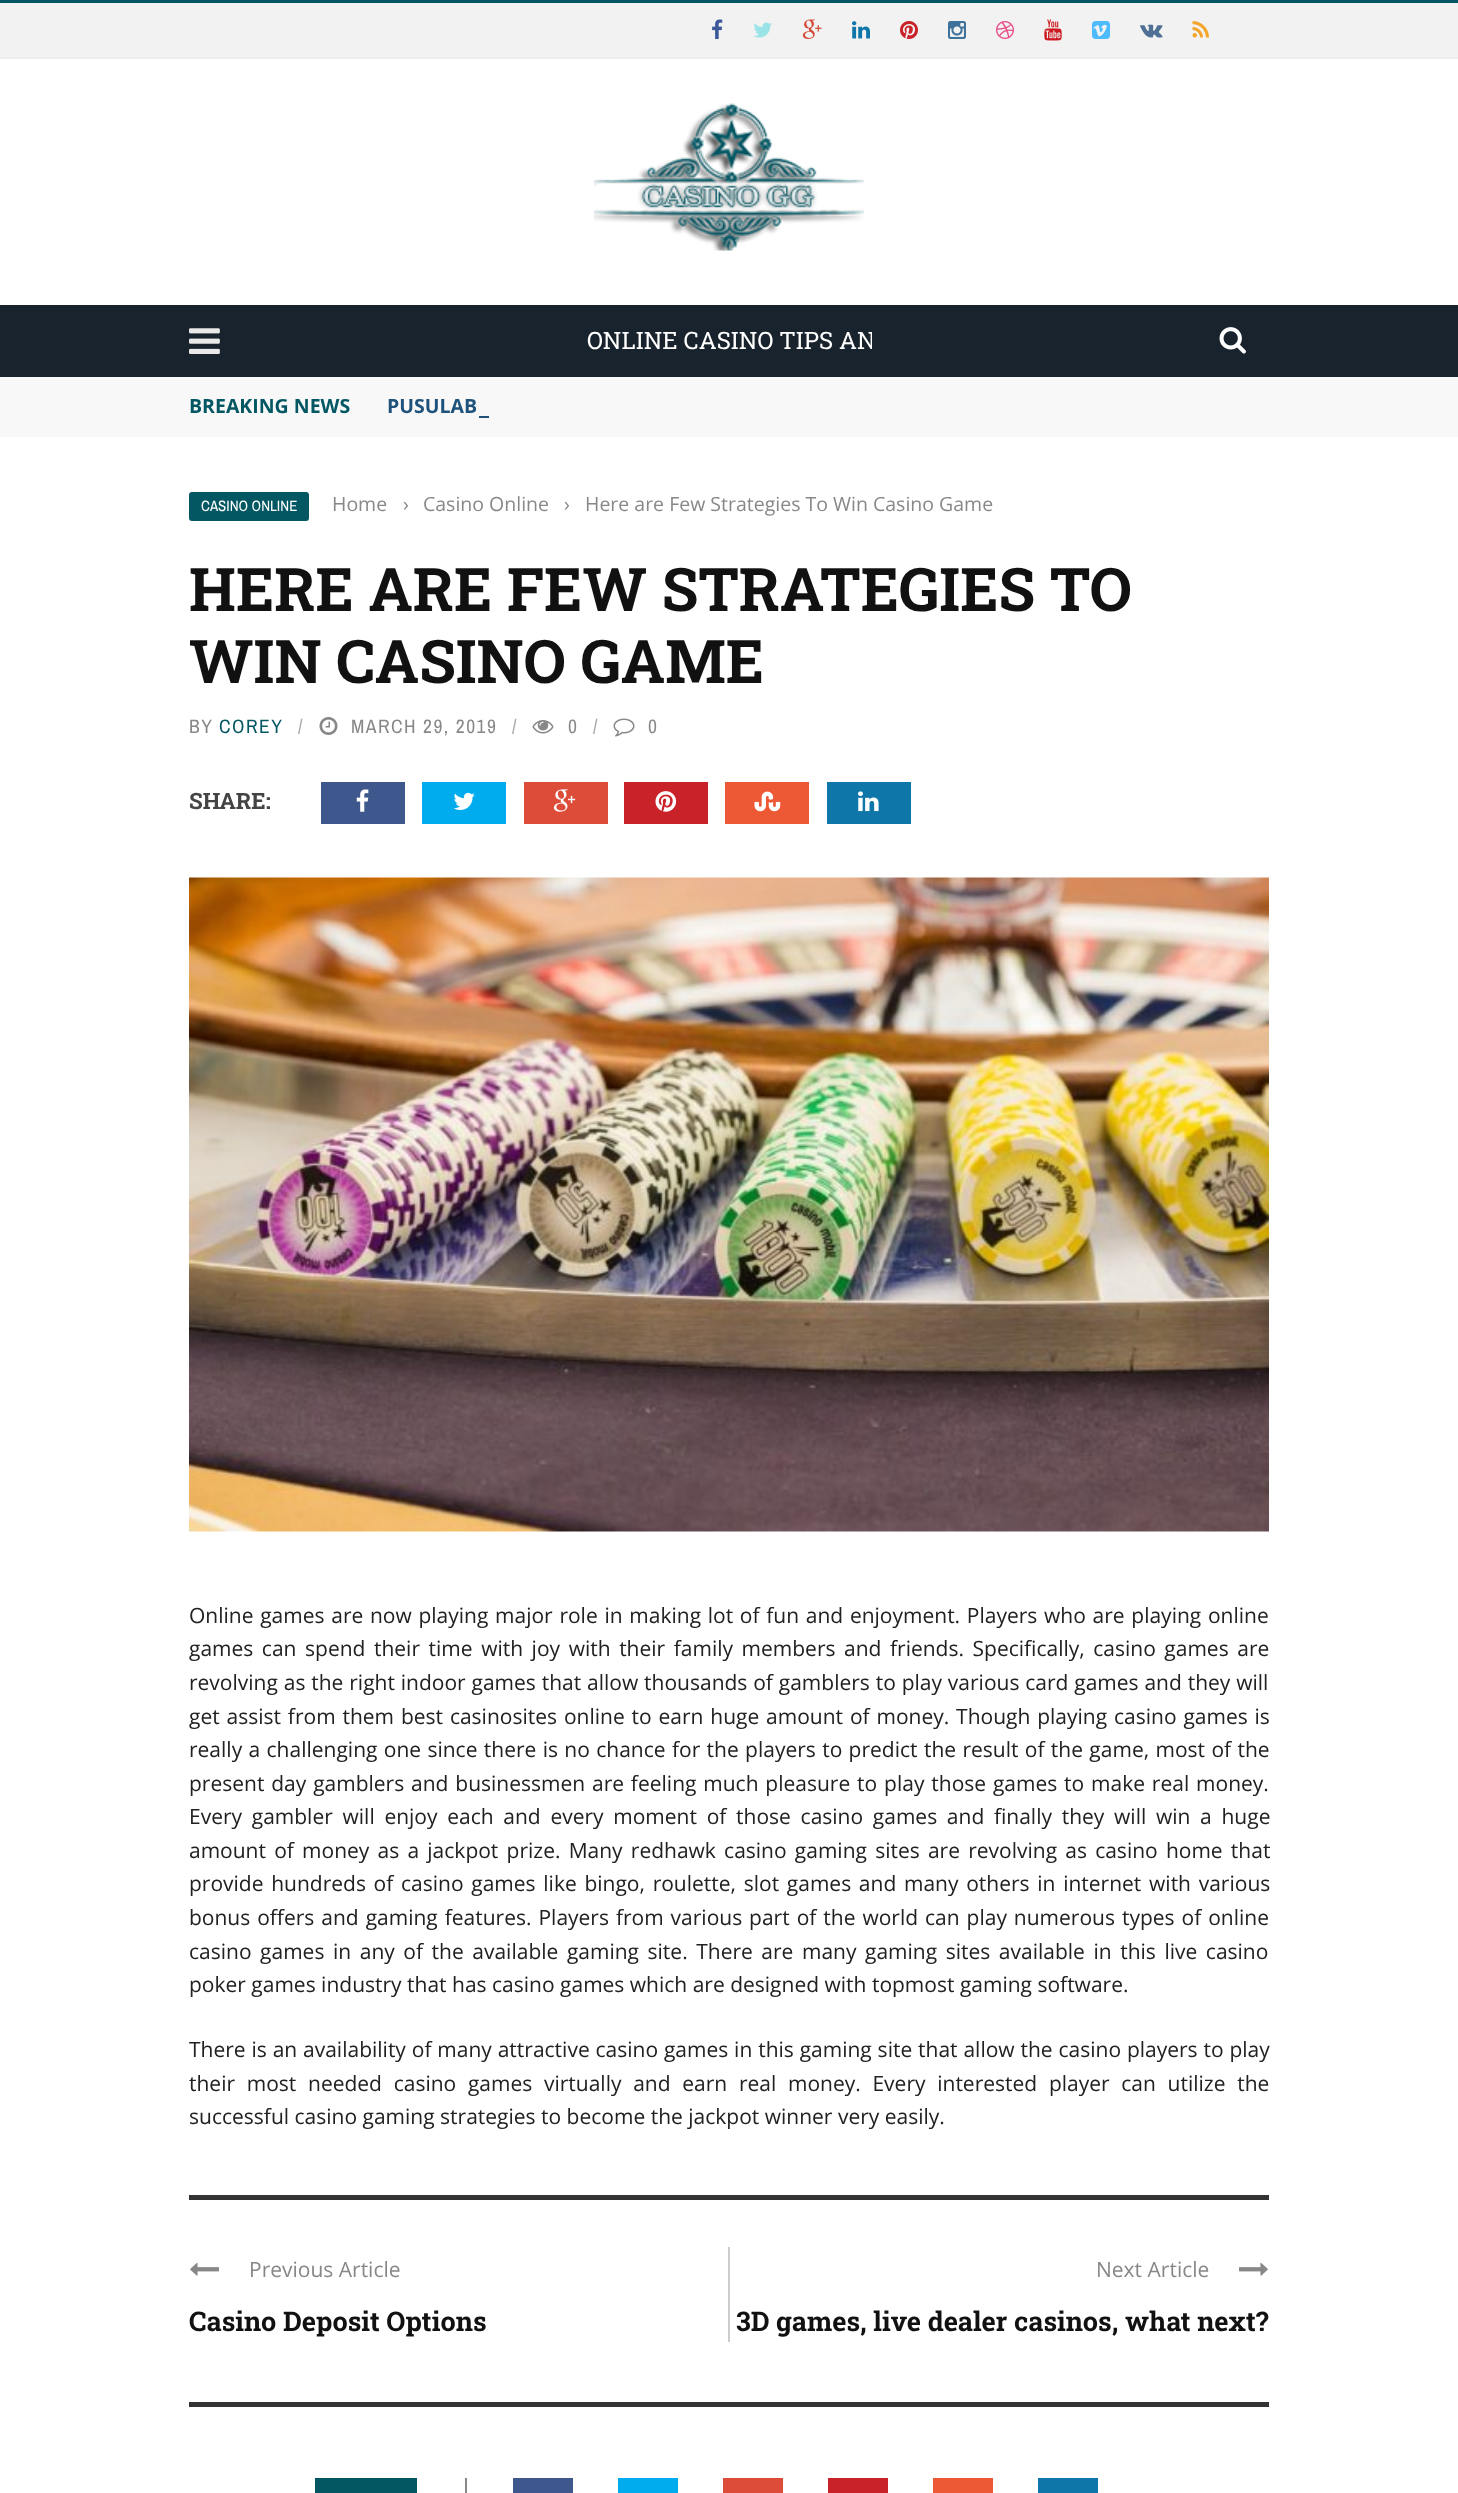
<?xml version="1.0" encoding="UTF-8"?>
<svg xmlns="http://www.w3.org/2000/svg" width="1458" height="2493">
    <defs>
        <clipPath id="clip1"><rect x="587" y="305" width="285" height="72"/></clipPath>
    </defs>
    <rect width="100%" height="100%" fill="#FFFFFF"/>
    <rect x="0" y="3" width="1458" height="54" fill="#F2F2F2"/>
    <rect x="0" y="0" width="1458" height="3" fill="#035763"/>
    <rect x="0" y="57" width="1458" height="2" fill="#EEEEEE"/>
    <image x="712" y="19" width="11" height="20" href="img_01.png"/>
    <image x="753" y="22" width="19" height="16" href="img_02.png"/>
    <image x="802" y="19" width="20" height="20" href="img_03.png"/>
    <image x="852" y="21" width="18" height="18" href="img_04.png"/>
    <image x="900" y="21" width="18" height="18" href="img_05.png"/>
    <image x="948" y="21" width="18" height="18" href="img_06.png"/>
    <image x="996" y="21" width="18" height="18" href="img_07.png"/>
    <image x="1044" y="19" width="18" height="22" href="img_08.png"/>
    <image x="1092" y="21" width="18" height="18" href="img_09.png"/>
    <image x="1140" y="24" width="23" height="14" href="img_10.png"/>
    <image x="1192" y="21" width="17" height="17" href="img_11.png"/>
    <image x="594" y="103" width="270" height="148" href="img_12.png"/>
    <rect x="0" y="305" width="1458" height="72" fill="#19232D"/>
    <image x="189" y="328" width="31" height="26" href="img_13.png"/>
    <g clip-path="url(#clip1)">
        <text x="587" y="349" font-family="Roboto Slab" font-size="24" fill="#FFFFFF">ONLINE CASINO TIPS AN</text>
    </g>
    <image x="1219" y="327" width="27" height="27" href="img_14.png"/>
    <rect x="0" y="377" width="1458" height="60" fill="#F8F8F8"/>
    <text x="189" y="413" font-family="Open Sans" font-size="19.5" font-weight="700" fill="#035763">BREAKING NEWS</text>
    <text x="387" y="413" font-family="Open Sans" font-size="19.5" font-weight="700" fill="#1F527B">PUSULAB</text>
    <rect x="479" y="416" width="10" height="2" fill="#1F527B"/>
    <rect x="189" y="492" width="120" height="29" rx="3" fill="#035763"/>
    <text x="201" y="511" font-family="Archivo Narrow" font-size="15" fill="#FFFFFF">CASINO ONLINE</text>
    <text x="332" y="511" font-family="Open Sans" font-size="19.5" fill="#888888">Home</text>
    <text x="403" y="511" font-family="Open Sans" font-size="19.5" fill="#888888">›</text>
    <text x="423" y="511" font-family="Open Sans" font-size="19.5" fill="#888888">Casino Online</text>
    <text x="564" y="511" font-family="Open Sans" font-size="19.5" fill="#888888">›</text>
    <text x="585" y="511" font-family="Open Sans" font-size="19.5" fill="#888888">Here are Few Strategies To Win Casino Game</text>
    <text font-family="Roboto Slab" font-size="60" font-weight="700" fill="#111111">
        <tspan x="189" y="611">HERE ARE FEW STRATEGIES TO</tspan>
        <tspan x="189" y="683">WIN CASINO GAME</tspan>
    </text>
    <text x="189" y="733" font-family="Archivo Narrow" font-size="19.5" letter-spacing="1.5" fill="#888888">BY</text>
    <text x="219" y="733" font-family="Archivo Narrow" font-size="19.5" letter-spacing="1.5" fill="#035763">COREY</text>
    <text x="298" y="733" font-family="Archivo Narrow" font-size="19.5" letter-spacing="1.5" fill="#AAAAAA">/</text>
    <image x="319" y="717" width="19" height="18" href="img_15.png"/>
    <text x="351" y="733" font-family="Archivo Narrow" font-size="19.5" letter-spacing="1.5" fill="#888888">MARCH 29, 2019</text>
    <text x="512" y="733" font-family="Archivo Narrow" font-size="19.5" letter-spacing="1.5" fill="#AAAAAA">/</text>
    <image x="532" y="720" width="22" height="14" href="img_16.png"/>
    <text x="568" y="733" font-family="Archivo Narrow" font-size="19.5" letter-spacing="1.5" fill="#888888">0</text>
    <text x="593" y="733" font-family="Archivo Narrow" font-size="19.5" letter-spacing="1.5" fill="#AAAAAA">/</text>
    <image x="613" y="718" width="22" height="19" href="img_17.png"/>
    <text x="648" y="733" font-family="Archivo Narrow" font-size="19.5" letter-spacing="1.5" fill="#888888">0</text>
    <text x="189" y="809" font-family="Roboto Slab" font-size="22.5" font-weight="700" fill="#444444">SHARE:</text>
    <rect x="321" y="782" width="84" height="42" fill="#3E578C"/>
    <image x="356" y="789" width="13" height="23" href="img_18.png"/>
    <rect x="422" y="782" width="84" height="42" fill="#00ACEE"/>
    <image x="453" y="792" width="22" height="18" href="img_19.png"/>
    <rect x="524" y="782" width="84" height="42" fill="#DD4B39"/>
    <image x="553" y="789" width="23" height="23" href="img_20.png"/>
    <rect x="624" y="782" width="84" height="42" fill="#C92228"/>
    <image x="655" y="791" width="22" height="21" href="img_21.png"/>
    <rect x="725" y="782" width="84" height="42" fill="#ED5934"/>
    <image x="754" y="791" width="27" height="21" href="img_22.png"/>
    <rect x="827" y="782" width="84" height="42" fill="#0E76A8"/>
    <image x="858" y="791" width="21" height="21" href="img_23.png"/>
    <image x="189" y="877" width="1080" height="655" href="img_24.png"/>
    <text font-family="Open Sans" font-size="21" fill="#212121">
        <tspan x="189" y="1623" word-spacing="1.25">Online games are now playing major role in making lot of fun and enjoyment. Players who are playing online</tspan>
        <tspan x="189" y="1656" word-spacing="3.1">games can spend their time with joy with their family members and friends. Specifically, casino games are</tspan>
        <tspan x="189" y="1690" word-spacing="0.4">revolving as the right indoor games that allow thousands of gamblers to play various card games and they will</tspan>
        <tspan x="189" y="1724" word-spacing="1.4">get assist from them best casinosites online to earn huge amount of money. Though playing casino games is</tspan>
        <tspan x="189" y="1757" word-spacing="0.9">really a challenging one since there is no chance for the players to predict the result of the game, most of the</tspan>
        <tspan x="189" y="1791" word-spacing="1.4">present day gamblers and businessmen are feeling much pleasure to play those games to make real money.</tspan>
        <tspan x="189" y="1824" word-spacing="4.25">Every gambler will enjoy each and every moment of those casino games and finally they will win a huge</tspan>
        <tspan x="189" y="1858" word-spacing="2.75">amount of money as a jackpot prize. Many redhawk casino gaming sites are revolving as casino home that</tspan>
        <tspan x="189" y="1891" word-spacing="2.25">provide hundreds of casino games like bingo, roulette, slot games and many others in internet with various</tspan>
        <tspan x="189" y="1925" word-spacing="1.5">bonus offers and gaming features. Players from various part of the world can play numerous types of online</tspan>
        <tspan x="189" y="1959" word-spacing="3.1">casino games in any of the available gaming site. There are many gaming sites available in this live casino</tspan>
        <tspan x="189" y="1992">poker games industry that has casino games which are designed with topmost gaming software.</tspan>
    </text>
    <text font-family="Open Sans" font-size="21" fill="#212121">
        <tspan x="189" y="2057" word-spacing="0.4">There is an availability of many attractive casino games in this gaming site that allow the casino players to play</tspan>
        <tspan x="189" y="2091" word-spacing="6.25">their most needed casino games virtually and earn real money. Every interested player can utilize the</tspan>
        <tspan x="189" y="2124">successful casino gaming strategies to become the jackpot winner very easily.</tspan>
    </text>
    <rect x="189" y="2195" width="1080" height="5" fill="#333333"/>
    <rect x="728" y="2247" width="2" height="95" fill="#CCCCCC"/>
    <image x="190" y="2262" width="29" height="14" href="img_25.png"/>
    <text x="249" y="2277" font-family="Open Sans" font-size="21" fill="#888888">Previous Article</text>
    <text x="189" y="2331" font-family="Roboto Slab" font-size="27" font-weight="700" fill="#111111">Casino Deposit Options</text>
    <text x="1096" y="2277" font-family="Open Sans" font-size="21" fill="#888888">Next Article</text>
    <image x="1239" y="2262" width="29" height="14" href="img_26.png"/>
    <text x="736" y="2331" font-family="Roboto Slab" font-size="27" font-weight="700" fill="#111111">3D games, live dealer casinos, what next?</text>
    <rect x="189" y="2402" width="1080" height="5" fill="#333333"/>
    <rect x="465" y="2478" width="2" height="15" fill="#888888"/>
    <rect x="315" y="2478" width="102" height="15" fill="#035763"/>
    <rect x="513" y="2478" width="60" height="15" fill="#3E578C"/>
    <rect x="618" y="2478" width="60" height="15" fill="#00ACEE"/>
    <rect x="723" y="2478" width="60" height="15" fill="#DD4B39"/>
    <rect x="828" y="2478" width="60" height="15" fill="#C92228"/>
    <rect x="933" y="2478" width="60" height="15" fill="#ED5934"/>
    <rect x="1038" y="2478" width="60" height="15" fill="#0E76A8"/>
</svg>
